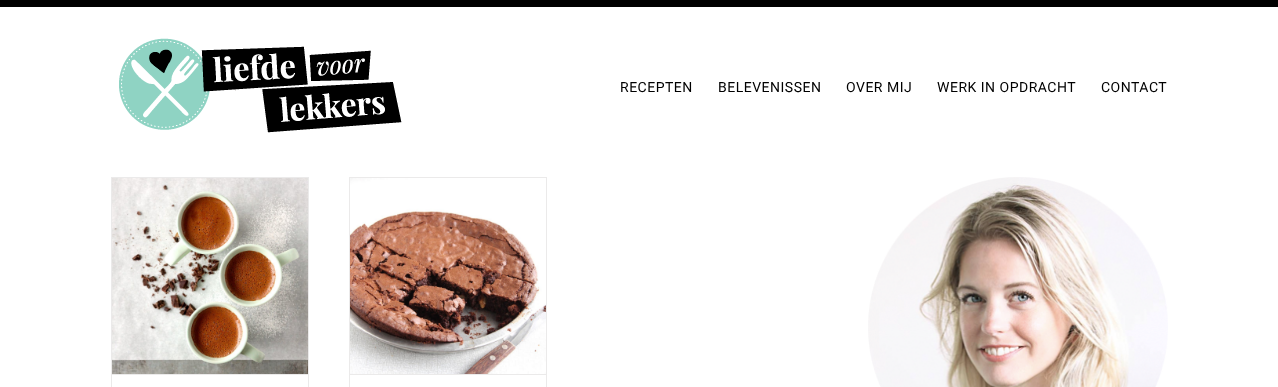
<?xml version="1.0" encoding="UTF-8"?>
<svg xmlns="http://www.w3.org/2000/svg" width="1278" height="387">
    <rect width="100%" height="100%" fill="#FFFFFF"/>
    <rect x="0" y="0" width="1278" height="7" fill="#000000"/>
    <image x="119" y="38" width="283" height="95" href="img_01.png"/>
    <text x="620" y="92" font-family="Roboto" font-size="14" letter-spacing="0.5" fill="#000000">RECEPTEN</text>
    <text x="718" y="92" font-family="Roboto" font-size="14" letter-spacing="0.5" fill="#000000">BELEVENISSEN</text>
    <text x="846" y="92" font-family="Roboto" font-size="14" letter-spacing="0.5" fill="#000000">OVER MIJ</text>
    <text x="937" y="92" font-family="Roboto" font-size="14" letter-spacing="0.5" fill="#000000">WERK IN OPDRACHT</text>
    <text x="1101" y="92" font-family="Roboto" font-size="14" letter-spacing="0.5" fill="#000000">CONTACT</text>
    <rect x="111" y="177" width="198" height="1" fill="#EBEAEA"/>
    <rect x="308" y="177" width="1" height="210" fill="#EBEAEA"/>
    <rect x="111" y="177" width="1" height="210" fill="#EBEAEA"/>
    <rect x="112" y="374" width="196" height="1" fill="#EBEAEA"/>
    <image x="112" y="178" width="196" height="196" href="img_02.png"/>
    <rect x="349" y="177" width="198" height="1" fill="#EBEAEA"/>
    <rect x="546" y="177" width="1" height="210" fill="#EBEAEA"/>
    <rect x="349" y="177" width="1" height="210" fill="#EBEAEA"/>
    <rect x="350" y="374" width="196" height="1" fill="#EBEAEA"/>
    <image x="350" y="178" width="196" height="196" href="img_03.png"/>
    <image x="868" y="177" width="300" height="210" href="img_04.png"/>
</svg>
